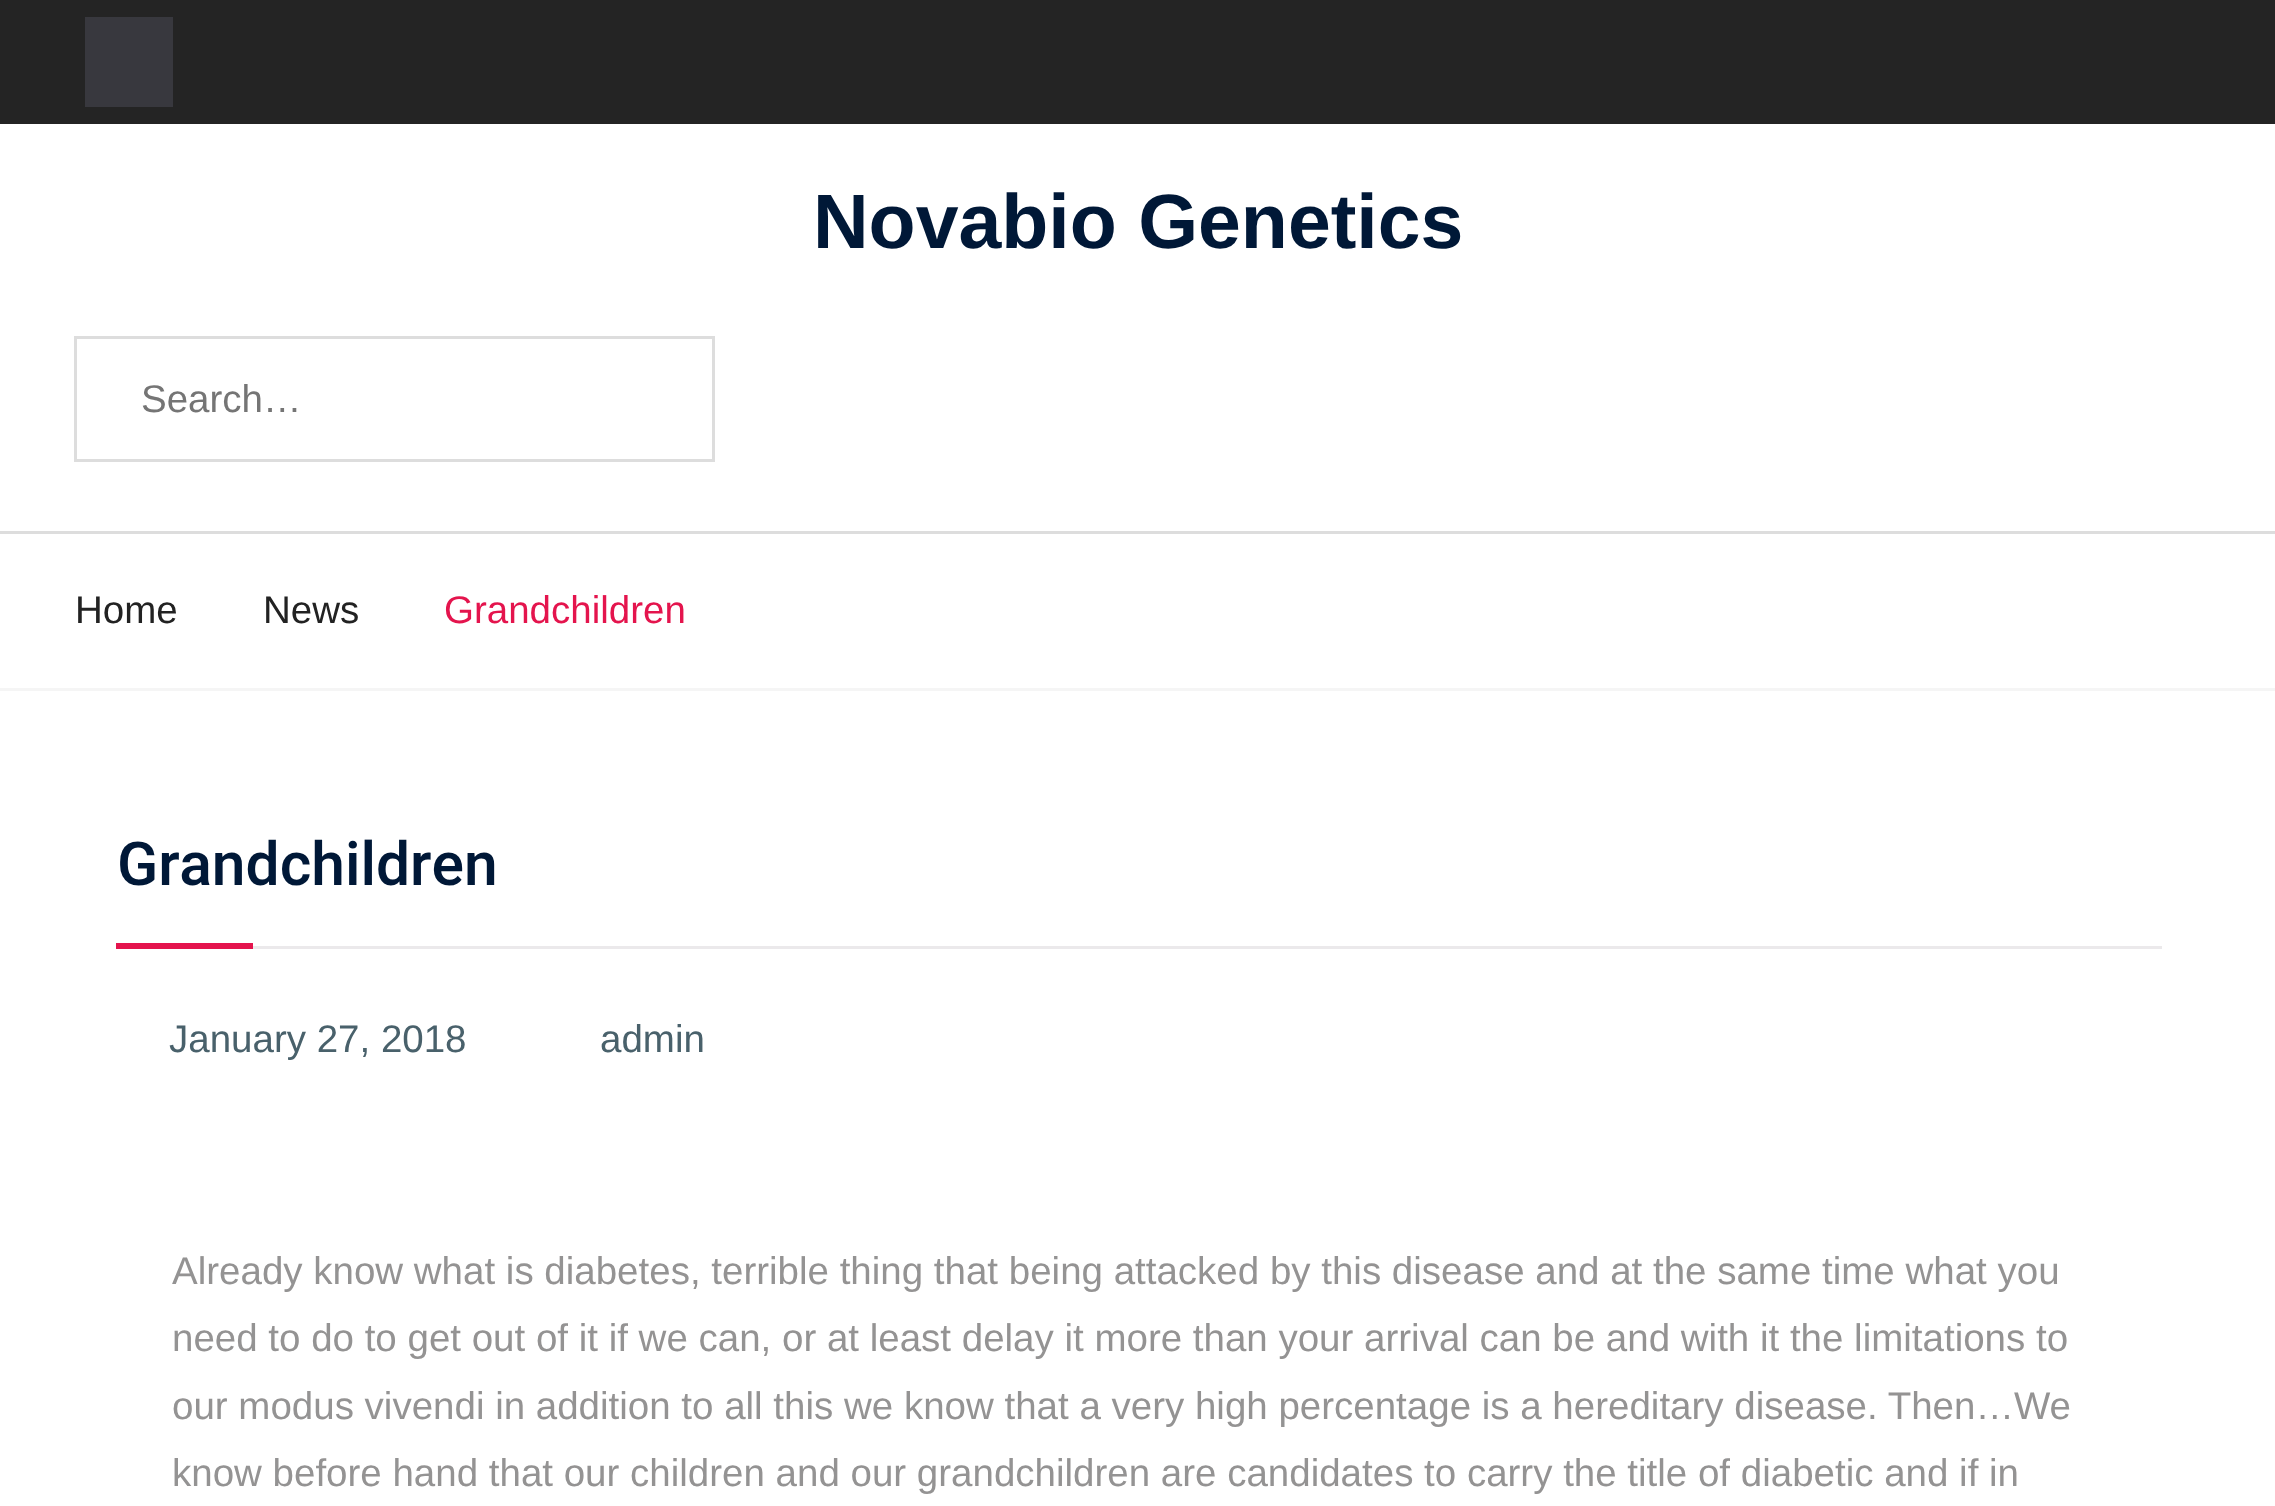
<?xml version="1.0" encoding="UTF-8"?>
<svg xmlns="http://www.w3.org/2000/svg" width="2275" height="1506">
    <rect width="100%" height="100%" fill="#FFFFFF"/>
    <rect x="0" y="0" width="2275" height="124" fill="#242424"/>
    <rect x="85" y="17" width="88" height="90" fill="#38383E"/>
    <rect x="0" y="531" width="2275" height="3" fill="#DDDDDD"/>
    <text x="813" y="248" font-family="Liberation Sans" font-size="77" font-weight="700" fill="#001837">Novabio Genetics</text>
    <rect x="75.5" y="337.5" width="638" height="123" fill="none" stroke="#DDDDDD" stroke-width="3"/>
    <text x="141" y="412" font-family="Liberation Sans" font-size="38.5" fill="#757575">Search…</text>
    <rect x="0" y="688" width="2275" height="3" fill="#F5F5F5"/>
    <text x="75" y="623" font-family="Liberation Sans" font-size="38.5" fill="#222222">Home</text>
    <text x="263" y="623" font-family="Liberation Sans" font-size="38.5" fill="#222222">News</text>
    <text x="444" y="623" font-family="Liberation Sans" font-size="38.5" fill="#E4144D">Grandchildren</text>
    <rect x="253" y="946" width="1909" height="3" fill="#EBE9EB"/>
    <text x="117" y="885" font-family="Heebo" font-size="60.5" font-weight="500" fill="#001837">Grandchildren</text>
    <rect x="116" y="943" width="137" height="6" fill="#E4144D"/>
    <text x="169" y="1052" font-family="Liberation Sans" font-size="38.5" fill="#49616B">January 27, 2018</text>
    <text x="600" y="1052" font-family="Liberation Sans" font-size="38.5" fill="#49616B">admin</text>
    <text font-family="Liberation Sans" font-size="38.5" fill="#949393">
        <tspan x="172" y="1284">Already know what is diabetes, terrible thing that being attacked by this disease and at the same time what you</tspan>
        <tspan x="172" y="1351">need to do to get out of it if we can, or at least delay it more than your arrival can be and with it the limitations to</tspan>
        <tspan x="172" y="1419">our modus vivendi in addition to all this we know that a very high percentage is a hereditary disease. Then…We</tspan>
        <tspan x="172" y="1486">know before hand that our children and our grandchildren are candidates to carry the title of diabetic and if in</tspan>
    </text>
</svg>
